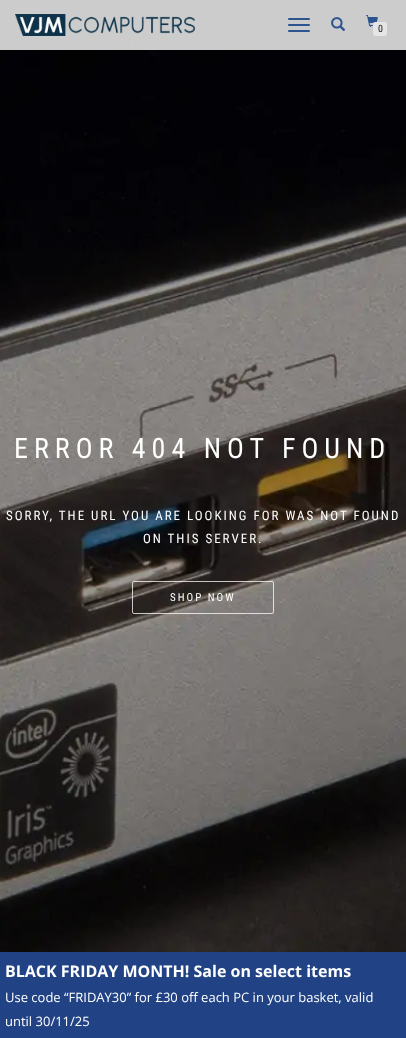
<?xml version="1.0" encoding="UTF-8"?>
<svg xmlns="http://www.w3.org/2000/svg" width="406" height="1038">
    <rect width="100%" height="100%" fill="#FFFFFF"/>
    <image x="0" y="0" width="406" height="952" href="img_04.png"/>
    <rect x="0" y="0" width="406" height="50" fill="#FFFFFF" fill-opacity="0.8"/>
    <image x="15" y="14" width="180" height="22" href="img_01.png"/>
    <rect x="288" y="18" width="22" height="2" rx="1" fill="#2C5590"/>
    <rect x="288" y="24" width="22" height="2" rx="1" fill="#2C5590"/>
    <rect x="288" y="30" width="22" height="2" rx="1" fill="#2C5590"/>
    <image x="331" y="17" width="15" height="14" href="img_02.png"/>
    <image x="366" y="15" width="12" height="12" href="img_03.png"/>
    <rect x="373" y="22" width="14" height="14" rx="2" fill="#E5E5E5"/>
    <text x="378" y="32" font-family="Roboto Condensed" font-size="10" fill="#111111">0</text>
    <text x="14" y="458" font-family="Roboto Condensed" font-size="28" letter-spacing="6" fill="#FFFFFF">ERROR 404 NOT FOUND</text>
    <text x="6" y="520" font-family="Roboto Condensed" font-size="13" letter-spacing="2" fill="#FFFFFF">SORRY, THE URL YOU ARE LOOKING FOR WAS NOT FOUND</text>
    <text x="143" y="543" font-family="Roboto Condensed" font-size="13" letter-spacing="2" fill="#FFFFFF">ON THIS SERVER.</text>
    <rect x="132.5" y="581.5" width="141" height="32" rx="1.5" fill="none" stroke="#FFFFFF" stroke-opacity="0.75"/>
    <text x="170" y="601" font-family="Roboto Condensed" font-size="11" letter-spacing="2" fill="#FFFFFF">SHOP NOW</text>
    <rect x="0" y="952" width="406" height="86" fill="#214385"/>
    <text x="5" y="977" font-family="Open Sans" font-size="16" font-weight="700" fill="#FFFFFF">BLACK FRIDAY MONTH! Sale on select items</text>
    <text font-family="Open Sans" font-size="13" fill="#FFFFFF">
        <tspan x="5" y="1002">Use code “FRIDAY30” for £30 off each PC in your basket, valid</tspan>
        <tspan x="5" y="1026">until 30/11/25</tspan>
    </text>
</svg>
